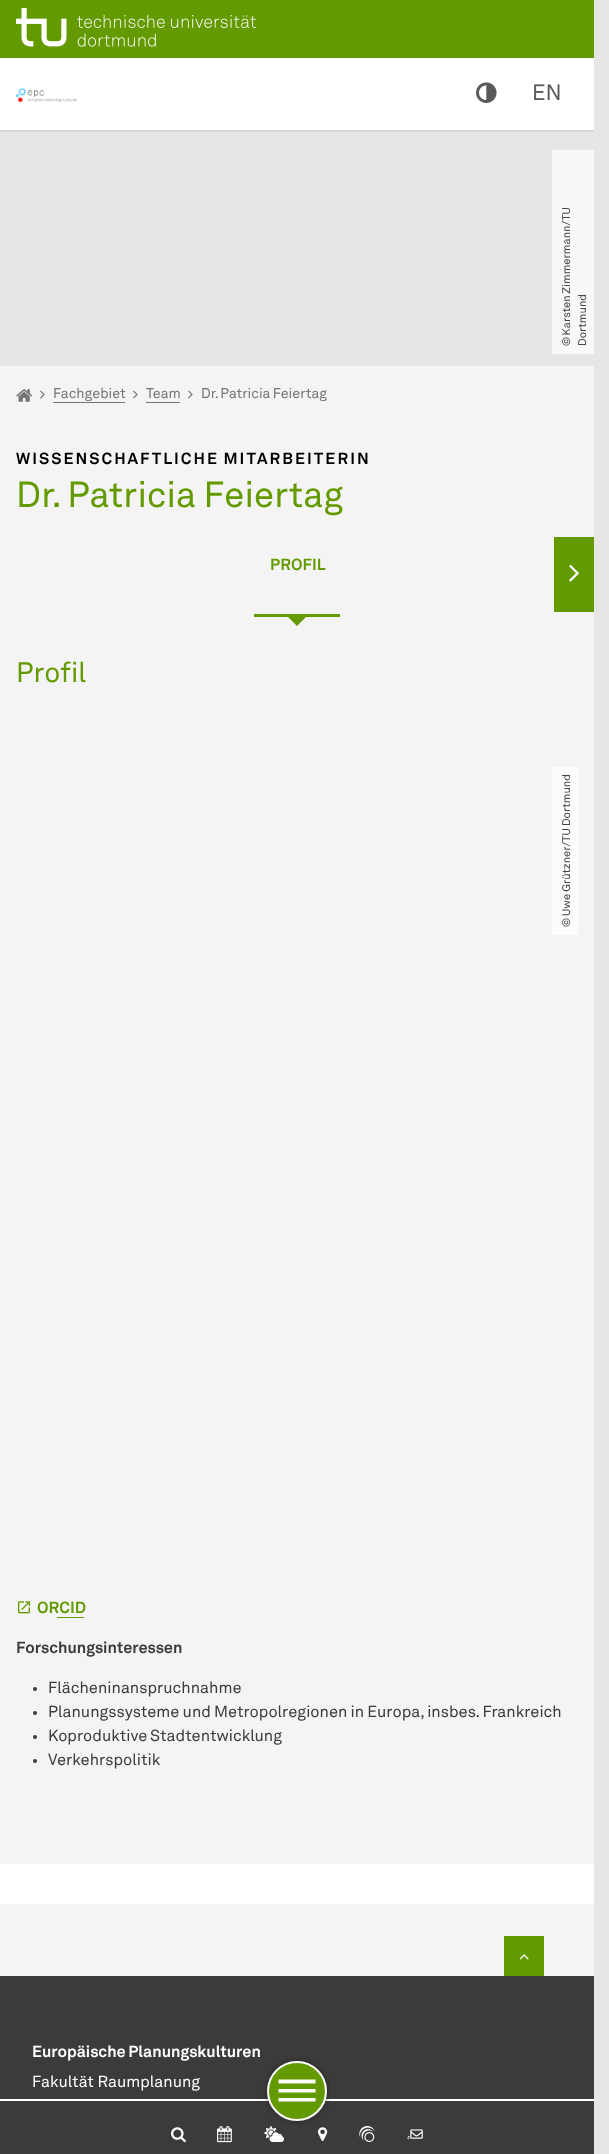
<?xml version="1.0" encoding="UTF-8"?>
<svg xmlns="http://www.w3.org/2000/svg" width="609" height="2154">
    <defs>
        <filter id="blur1" x="-50%" y="-200%" width="200%" height="500%"><feGaussianBlur stdDeviation="2"/></filter>
    </defs>
    <rect width="100%" height="100%" fill="#E6E6E6"/>
    <rect x="0" y="0" width="594" height="58" fill="#639A00"/>
    <image x="16" y="8" width="240" height="39" href="img_01.png"/>
    <rect x="0" y="58" width="594" height="72" fill="#FFFFFF"/>
    <rect x="0" y="130" width="594" height="2" fill="#D8D8D8"/>
    <image x="16" y="87" width="61" height="15" href="img_02.png"/>
    <image x="476" y="82" width="21" height="21" href="img_03.png"/>
    <image x="534" y="84" width="26" height="16" href="img_04.png"/>
    <rect x="552" y="150" width="42" height="204" fill="#F8F8F8"/>
    <text x="570" y="346" transform="rotate(-90 570 346)" word-spacing="-1" font-family="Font" font-size="11" fill="#454545">© Karsten Zimmermann/TU</text>
    <text x="586" y="346" transform="rotate(-90 586 346)" font-family="Font" font-size="11" fill="#454545">Dortmund</text>
    <rect x="0" y="366" width="594" height="1610" fill="#F4F4F4"/>
    <image x="16" y="389" width="16" height="13" href="img_05.png"/>
    <image x="40" y="390" width="5" height="9" href="img_06.png"/>
    <text x="53" y="398" font-family="Font" font-size="14" fill="#757575">Fachgebiet</text>
    <rect x="53" y="402" width="72" height="1" fill="#757575"/>
    <image x="133" y="390" width="5" height="9" href="img_06.png"/>
    <text x="146" y="398" font-family="Font" font-size="14" fill="#757575">Team</text>
    <rect x="146" y="402" width="34" height="1" fill="#757575"/>
    <image x="188" y="390" width="5" height="9" href="img_06.png"/>
    <text x="201" y="398" word-spacing="-1" font-family="Font" font-size="14" fill="#757575">Dr. Patricia Feiertag</text>
    <text x="16" y="464" word-spacing="-1" font-family="Font" font-size="16" font-weight="700" letter-spacing="2" fill="#000000">WISSENSCHAFTLICHE MITARBEITERIN</text>
    <text x="16" y="507" word-spacing="-1" font-family="Font" font-size="36" fill="#639A00">Dr. Patricia Feiertag</text>
    <rect x="254" y="614" width="86" height="3" fill="#639A00"/>
    <text x="270" y="570" font-family="Font" font-size="16" font-weight="700" fill="#639A00">PROFIL</text>
    <path d="M 285 614 H 309 L 297 626 Z" fill="#639A00"/>
    <rect x="554" y="537" width="40" height="75" fill="#639A00"/>
    <image x="569" y="564" width="10" height="18" href="img_07.png"/>
    <text x="16" y="682" font-family="Font" font-size="28" fill="#639A00">Profil</text>
    <rect x="552" y="767" width="26" height="168" fill="#FCFCFC"/>
    <text x="570" y="927" transform="rotate(-90 570 927)" word-spacing="-0.5" font-family="Font" font-size="11" fill="#454545">© Uwe Grützner/TU Dortmund</text>
    <image x="18" y="1601" width="12" height="13" href="img_08.png"/>
    <text x="37" y="1613" font-family="Font" font-size="16" font-weight="700" fill="#639A00">ORCID</text>
    <rect x="57" y="1617" width="27" height="1" fill="#639A00"/>
    <text x="16" y="1653" font-family="Font" font-size="16" font-weight="700" fill="#3B3B3B">Forschungsinteressen</text>
    <circle cx="35" cy="1689" r="2" fill="#3B3B3B"/>
    <text x="48" y="1693" font-family="Font" font-size="16" fill="#3B3B3B">Flächeninanspruchnahme</text>
    <circle cx="35" cy="1713" r="2" fill="#3B3B3B"/>
    <text x="48" y="1717" word-spacing="-0.5" font-family="Font" font-size="16" fill="#3B3B3B">Planungssysteme und Metropolregionen in Europa, insbes. Frankreich</text>
    <circle cx="35" cy="1737" r="2" fill="#3B3B3B"/>
    <text x="48" y="1741" word-spacing="-1" font-family="Font" font-size="16" fill="#3B3B3B">Koproduktive Stadtentwicklung</text>
    <circle cx="35" cy="1761" r="2" fill="#3B3B3B"/>
    <text x="48" y="1765" font-family="Font" font-size="16" fill="#3B3B3B">Verkehrspolitik</text>
    <rect x="0" y="1864" width="594" height="40" fill="#FFFFFF"/>
    <rect x="504" y="1936" width="40" height="40" fill="#639A00"/>
    <image x="519" y="1954" width="10" height="6" href="img_09.png"/>
    <rect x="0" y="1976" width="594" height="123" fill="#3B3B3B"/>
    <text x="32" y="2057" word-spacing="-1" font-family="Font" font-size="16" font-weight="700" fill="#FFFFFF">Europäische Planungskulturen</text>
    <text x="32" y="2087" font-family="Font" font-size="16" fill="#FFFFFF">Fakultät Raumplanung</text>
    <rect x="0" y="2101" width="594" height="53" fill="#3B3B3B"/>
    <rect x="0" y="2099" width="594" height="2" fill="#FFFFFF"/>
    <image x="264" y="2126" width="20" height="16" href="img_12.png"/>
    <image x="318" y="2127" width="10" height="14" href="img_13.png"/>
    <rect x="265" y="2059" width="64" height="64" rx="32" fill="#000000" fill-opacity="0.2" filter="url(#blur1)"/>
    <circle cx="297" cy="2091" r="29" fill="#639A00" stroke="#FFFFFF" stroke-width="2"/>
    <path d="M 278.5 2079.5 H 315.5 V 2083.5 H 278.5 Z M 278.5 2089 H 315.5 V 2092.5 H 278.5 Z M 278.5 2098 H 315.5 V 2101.5 H 278.5 Z" fill="#FFFFFF"/>
    <image x="171" y="2127" width="15" height="16" href="img_10.png"/>
    <image x="217" y="2126" width="15" height="17" href="img_11.png"/>
    <image x="359" y="2126" width="16" height="16" href="img_14.png"/>
    <image x="407" y="2129" width="16" height="10" href="img_15.png"/>
</svg>
